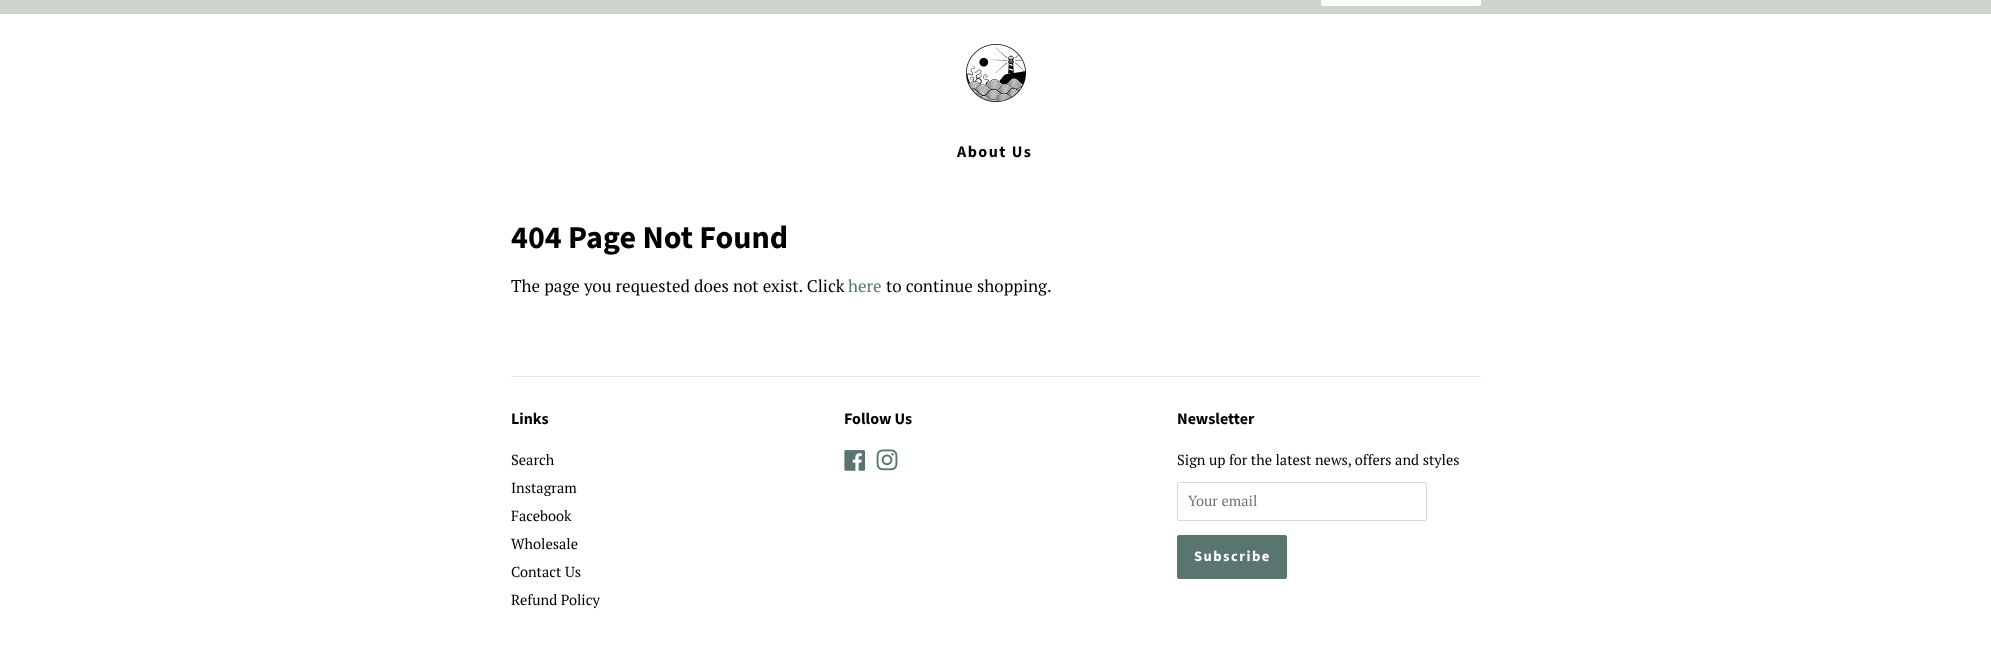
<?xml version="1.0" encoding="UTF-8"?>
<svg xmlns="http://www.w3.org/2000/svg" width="1991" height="659">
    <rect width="100%" height="100%" fill="#FFFFFF"/>
    <rect x="0" y="0" width="1991" height="14" fill="#CBD5CC"/>
    <rect x="1321" y="-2" width="160" height="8" rx="2" fill="#FFFFFF"/>
    <image x="966" y="44" width="60" height="58" href="img_01.png"/>
    <text x="957" y="157" font-family="Source Sans Pro" font-size="16" font-weight="700" letter-spacing="1.5" fill="#000000">About Us</text>
    <text x="511" y="248" font-family="Source Sans Pro" font-size="32" font-weight="700" fill="#000000">404 Page Not Found</text>
    <text x="511" y="292" font-family="PT Serif" font-size="17" fill="#000000">The page you requested does not exist. Click</text>
    <text x="848" y="292" font-family="PT Serif" font-size="17" fill="#59756F">here</text>
    <text x="886" y="292" font-family="PT Serif" font-size="17" fill="#000000">to continue shopping.</text>
    <rect x="511" y="376" width="970" height="1" fill="#EBEBEB"/>
    <text x="511" y="424" font-family="Source Sans Pro" font-size="16" font-weight="700" fill="#000000">Links</text>
    <text font-family="PT Serif" font-size="14.5" fill="#000000">
        <tspan x="511" y="465">Search</tspan>
        <tspan x="511" y="493">Instagram</tspan>
        <tspan x="511" y="521">Facebook</tspan>
        <tspan x="511" y="549">Wholesale</tspan>
        <tspan x="511" y="577">Contact Us</tspan>
        <tspan x="511" y="605">Refund Policy</tspan>
    </text>
    <text x="844" y="424" font-family="Source Sans Pro" font-size="16" font-weight="700" fill="#000000">Follow Us</text>
    <image x="844" y="450" width="21" height="21" href="img_02.png"/>
    <image x="876" y="449" width="22" height="22" href="img_03.png"/>
    <text x="1177" y="424" font-family="Source Sans Pro" font-size="16" font-weight="700" fill="#000000">Newsletter</text>
    <text x="1177" y="465" font-family="PT Serif" font-size="14.5" fill="#000000">Sign up for the latest news, offers and styles</text>
    <rect x="1177.5" y="482.5" width="249" height="38" rx="1.5" fill="none" stroke="#D9D9D9"/>
    <text x="1188" y="506" font-family="PT Serif" font-size="14.5" fill="#757575">Your email</text>
    <rect x="1177" y="535" width="110" height="44" rx="2" fill="#59756F"/>
    <text x="1194" y="561" font-family="Source Sans Pro" font-size="14.5" font-weight="700" letter-spacing="1.5" fill="#FFFFFF">Subscribe</text>
</svg>
